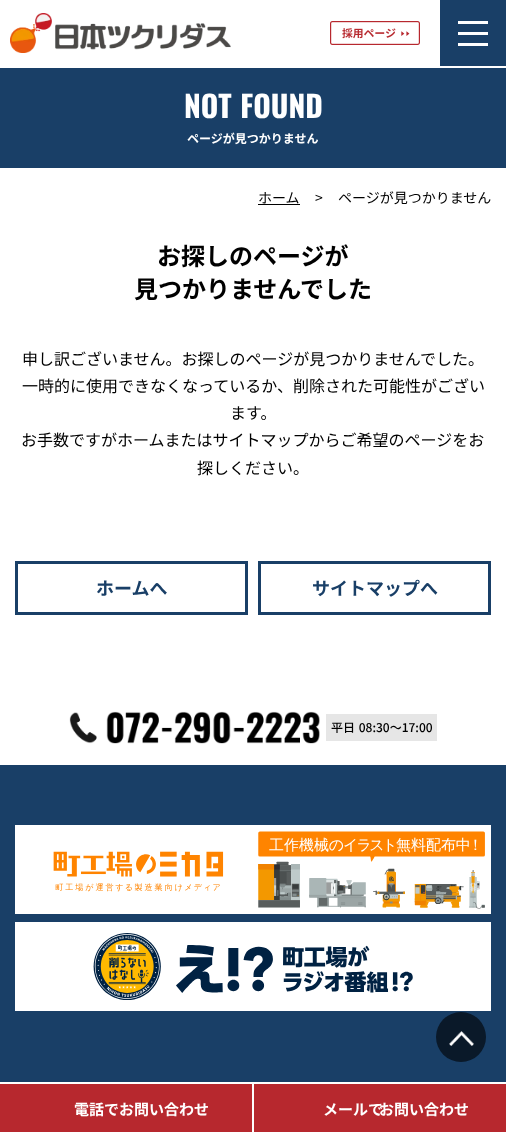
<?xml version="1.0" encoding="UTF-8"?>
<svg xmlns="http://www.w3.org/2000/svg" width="506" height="1132">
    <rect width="100%" height="100%" fill="#FFFFFF"/>
    <image x="10" y="13" width="221" height="40" href="img_01.png"/>
    <image x="330" y="21" width="90" height="24" href="img_02.png"/>
    <rect x="440" y="0" width="66" height="66" fill="#193F67"/>
    <rect x="458" y="21" width="30" height="3" fill="#FFFFFF"/>
    <rect x="458" y="32" width="30" height="3" fill="#FFFFFF"/>
    <rect x="458" y="43" width="30" height="3" fill="#FFFFFF"/>
    <rect x="0" y="68" width="506" height="100" fill="#193F67"/>
    <text x="184" y="118" word-spacing="1" font-family="Oswald" font-size="30" font-weight="700" fill="#FFFFFF">NOT FOUND</text>
    <text x="187" y="143" font-family="Noto Sans JP" font-size="12" font-weight="700" fill="#FFFFFF">ページが見つかりません</text>
    <text x="258" y="203" font-family="Noto Sans JP" font-size="14" fill="#000000">ホーム</text>
    <rect x="258" y="204" width="42" height="1" fill="#000000"/>
    <text x="315" y="203" font-family="Noto Sans JP" font-size="14" fill="#000000">&gt;</text>
    <text x="338" y="203" font-family="Noto Sans JP" font-size="14" fill="#000000">ページが見つかりません</text>
    <text x="157" y="265" font-family="Noto Sans JP" font-size="24" font-weight="700" fill="#000000">お探しのページが</text>
    <text x="134" y="298" font-family="Noto Sans JP" font-size="24" font-weight="700" fill="#000000">見つかりませんでした</text>
    <text font-family="Noto Sans JP" font-size="16" fill="#000000">
        <tspan x="22" y="365">申し訳ございません。お探しのページが見つかりませんでした。</tspan>
        <tspan x="22" y="392">一時的に使用できなくなっているか、削除された可能性がござい</tspan>
    </text>
    <text x="230" y="419" font-family="Noto Sans JP" font-size="16" fill="#000000">ます。</text>
    <text x="21" y="446" font-family="Noto Sans JP" font-size="16" fill="#000000">お手数ですがホームまたはサイトマップからご希望のページをお</text>
    <text x="197" y="474" font-family="Noto Sans JP" font-size="16" fill="#000000">探しください。</text>
    <rect x="16.5" y="562.5" width="230" height="51" fill="none" stroke="#193F67" stroke-width="3"/>
    <text x="96" y="595" font-family="Noto Sans JP" font-size="18" font-weight="700" fill="#193F67">ホームへ</text>
    <rect x="259.5" y="562.5" width="230" height="51" fill="none" stroke="#193F67" stroke-width="3"/>
    <text x="312" y="595" font-family="Noto Sans JP" font-size="18" font-weight="700" fill="#193F67">サイトマップへ</text>
    <rect x="0" y="765" width="506" height="317" fill="#193F67"/>
    <image x="69" y="711" width="251" height="33" href="img_03.png"/>
    <rect x="326" y="714" width="111" height="27" fill="#E6E6E6"/>
    <text x="331" y="732" word-spacing="1" font-family="Noto Sans JP" font-size="12" font-weight="500" fill="#000000">平日 08:30〜17:00</text>
    <image x="15" y="825" width="476" height="89" href="img_04.png"/>
    <image x="15" y="922" width="476" height="89" href="img_05.png"/>
    <circle cx="461" cy="1037" r="25" fill="#0A1929"/>
    <image x="449" y="1031" width="25" height="15" href="img_06.png"/>
    <rect x="0" y="1084" width="252" height="48" fill="#B7282E"/>
    <text x="74" y="1115" font-family="Noto Sans JP" font-size="15" font-weight="700" fill="#FFFFFF">電話でお問い合わせ</text>
    <rect x="254" y="1084" width="252" height="48" fill="#B7282E"/>
    <text x="323" y="1115" font-family="Noto Sans JP" font-size="15" font-weight="700" fill="#FFFFFF">メールで</text>
    <text x="379" y="1115" font-family="Noto Sans JP" font-size="15" font-weight="700" fill="#FFFFFF">お問い合わせ</text>
</svg>
